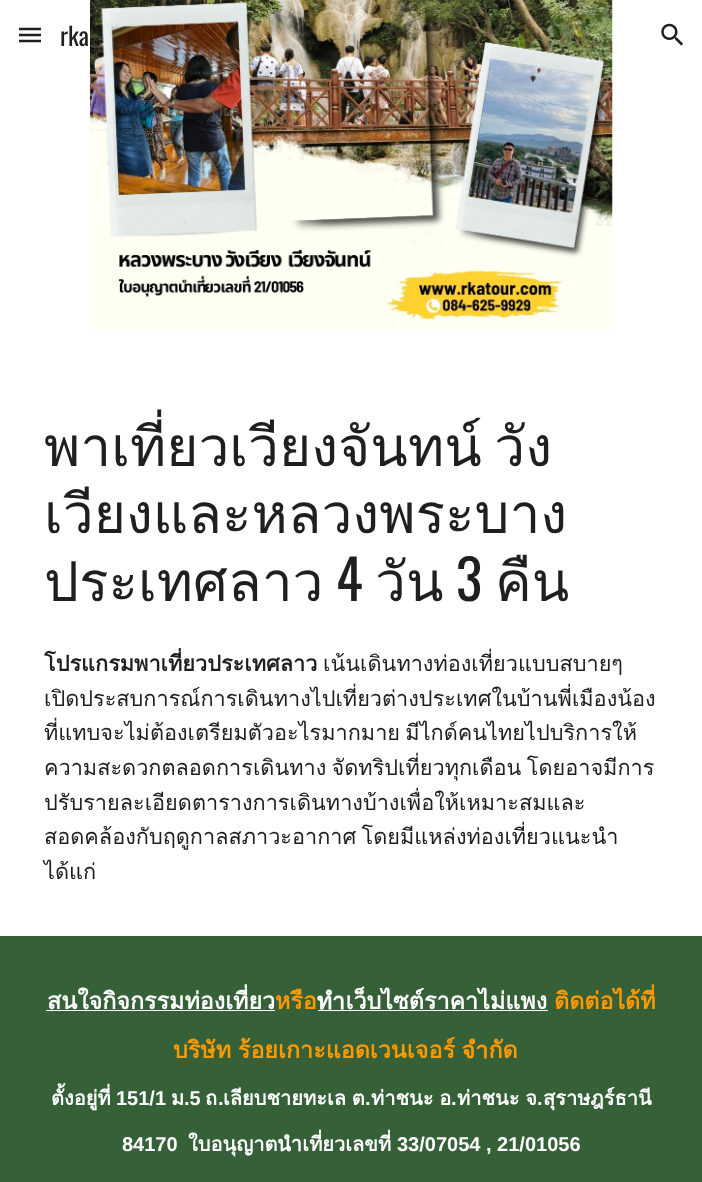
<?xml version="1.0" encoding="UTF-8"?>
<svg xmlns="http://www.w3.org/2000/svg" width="702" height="1182">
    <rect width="100%" height="100%" fill="#FFFFFF"/>
    <path d="M 19 29 H 41 M 19 35 H 41 M 19 41 H 41" fill="none" stroke="#1F1F1F" stroke-width="2.5"/>
    <text x="60" y="46" font-family="Oswald" font-size="25" fill="#1F1F1F">rka</text>
    <image x="661" y="23" width="22" height="23" href="img_01.png"/>
    <image x="90" y="0" width="523" height="331" href="img_02.png"/>
    <text font-family="Loma" font-size="55" fill="#1F1F1F">
        <tspan x="44" y="466" word-spacing="-6">พาเที่ยวเวียงจันทน์ วัง</tspan>
        <tspan x="44" y="533">เวียงและหลวงพระบาง</tspan>
        <tspan x="44" y="601">ประเทศลาว</tspan>
    </text>
    <text x="336" y="601" font-family="Oswald" font-size="55" fill="#1F1F1F">4</text>
    <text x="375" y="601" font-family="Loma" font-size="55" fill="#1F1F1F">วัน</text>
    <text x="456" y="601" font-family="Oswald" font-size="55" fill="#1F1F1F">3</text>
    <text x="495" y="601" font-family="Loma" font-size="55" fill="#1F1F1F">คืน</text>
    <text x="44" y="671" font-family="Loma" font-size="21.7" font-weight="700" fill="#1F1F1F">โปรแกรมพาเที่ยวประเทศลาว</text>
    <text x="323" y="671" font-family="Loma" font-size="21.7" fill="#1F1F1F">เน้นเดินทางท่องเที่ยวแบบสบายๆ</text>
    <text font-family="Loma" font-size="21.7" fill="#1F1F1F">
        <tspan x="44" y="706">เปิดประสบการณ์การเดินทางไปเที่ยวต่างประเทศในบ้านพี่เมืองน้อง</tspan>
        <tspan x="44" y="740" word-spacing="-2">ที่แทบจะไม่ต้องเตรียมตัวอะไรมากมาย มีไกด์คนไทยไปบริการให้</tspan>
        <tspan x="44" y="775" word-spacing="-2">ความสะดวกตลอดการเดินทาง จัดทริปเที่ยวทุกเดือน โดยอาจมีการ</tspan>
        <tspan x="44" y="810">ปรับรายละเอียดตารางการเดินทางบ้างเพื่อให้เหมาะสมและ</tspan>
        <tspan x="44" y="844" word-spacing="-2">สอดคล้องกับฤดูกาลสภาวะอากาศ โดยมีแหล่งท่องเที่ยวแนะนำ</tspan>
        <tspan x="44" y="879">ได้แก่</tspan>
    </text>
    <rect x="0" y="936" width="702" height="246" fill="#366038"/>
    <text x="47" y="1009" font-family="Loma" font-size="23.3" font-weight="700" fill="#FFFFFF">สนใจกิจกรรมท่องเที่ยว</text>
    <rect x="46" y="1010" width="229" height="1" fill="#FFFFFF"/>
    <text x="275" y="1009" font-family="Loma" font-size="23.3" font-weight="700" fill="#FF9900">หรือ</text>
    <text x="317" y="1009" font-family="Loma" font-size="23.3" font-weight="700" fill="#FFFFFF">ทำเว็บไซต์ราคาไม่แพง</text>
    <rect x="318" y="1010" width="230" height="1" fill="#FFFFFF"/>
    <text x="554" y="1009" font-family="Loma" font-size="23.3" font-weight="700" fill="#FF9900">ติดต่อได้ที่</text>
    <text x="173" y="1058" word-spacing="-1" font-family="Loma" font-size="23.3" font-weight="700" fill="#FF9900">บริษัท ร้อยเกาะแอดเวนเจอร์ จำกัด</text>
    <text x="51" y="1105" font-family="Loma" font-size="20" font-weight="700" fill="#FFFFFF">ตั้งอยู่ที่</text>
    <text x="116" y="1105" font-family="Liberation Sans" font-size="20" font-weight="700" fill="#FFFFFF">151/1</text>
    <text x="171" y="1105" font-family="Loma" font-size="20" font-weight="700" fill="#FFFFFF">ม</text>
    <text x="184" y="1105" font-family="Liberation Sans" font-size="20" font-weight="700" fill="#FFFFFF">.5</text>
    <text x="205" y="1105" font-family="Loma" font-size="20" font-weight="700" fill="#FFFFFF">ถ</text>
    <text x="218" y="1105" font-family="Liberation Sans" font-size="20" font-weight="700" fill="#FFFFFF">.</text>
    <text x="223" y="1105" word-spacing="-1" font-family="Loma" font-size="20" font-weight="700" fill="#FFFFFF">เลียบชายทะเล ต</text>
    <text x="365" y="1105" font-family="Liberation Sans" font-size="20" font-weight="700" fill="#FFFFFF">.</text>
    <text x="371" y="1105" word-spacing="-1" font-family="Loma" font-size="20" font-weight="700" fill="#FFFFFF">ท่าชนะ อ</text>
    <text x="451" y="1105" font-family="Liberation Sans" font-size="20" font-weight="700" fill="#FFFFFF">.</text>
    <text x="457" y="1105" word-spacing="-1" font-family="Loma" font-size="20" font-weight="700" fill="#FFFFFF">ท่าชนะ จ</text>
    <text x="537" y="1105" font-family="Liberation Sans" font-size="20" font-weight="700" fill="#FFFFFF">.</text>
    <text x="543" y="1105" font-family="Loma" font-size="20" font-weight="700" fill="#FFFFFF">สุราษฎร์ธานี</text>
    <text x="122" y="1151" font-family="Liberation Sans" font-size="20" font-weight="700" fill="#FFFFFF">84170</text>
    <text x="188" y="1151" font-family="Loma" font-size="20" font-weight="700" fill="#FFFFFF">ใบอนุญาตนำเที่ยวเลขที่</text>
    <text x="397" y="1151" font-family="Liberation Sans" font-size="20" font-weight="700" fill="#FFFFFF">33/07054 , 21/01056</text>
</svg>
